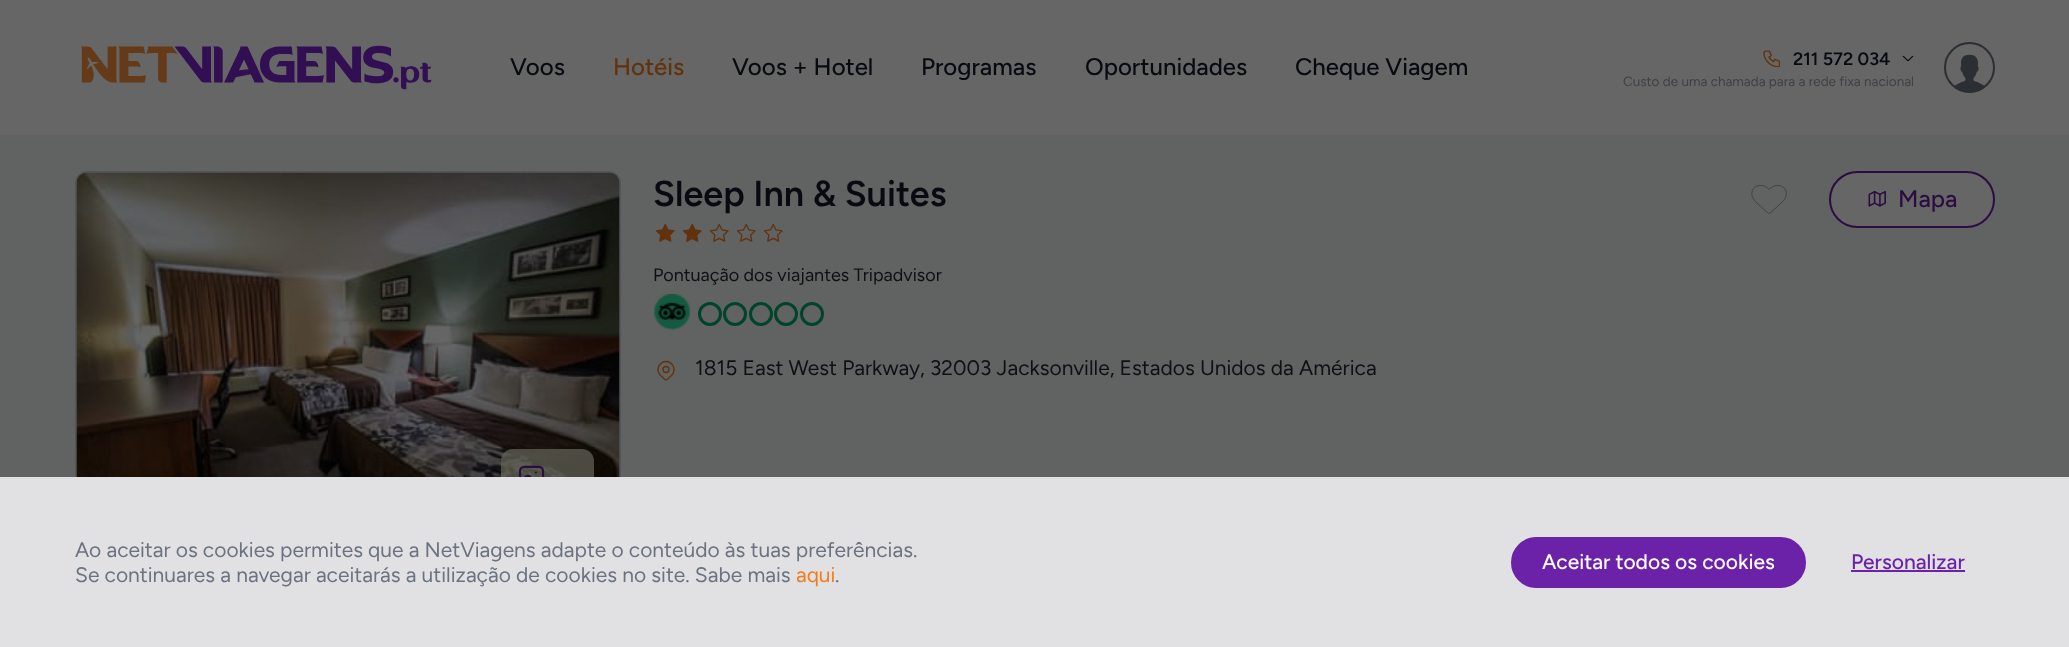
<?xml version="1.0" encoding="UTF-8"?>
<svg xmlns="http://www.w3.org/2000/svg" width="2069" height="647">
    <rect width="100%" height="100%" fill="#616262"/>
    <rect x="0" y="0" width="2069" height="135" fill="#666666"/>
    <image x="81" y="45" width="351" height="45" href="img_01.png"/>
    <text x="510" y="75" font-family="Figtree" font-size="24" font-weight="500" fill="#070A10">Voos</text>
    <text x="613" y="75" font-family="Figtree" font-size="24" font-weight="500" fill="#61320B">Hotéis</text>
    <text x="732" y="75" font-family="Figtree" font-size="24" font-weight="500" fill="#070A10">Voos + Hotel</text>
    <text x="921" y="75" font-family="Figtree" font-size="24" font-weight="500" fill="#070A10">Programas</text>
    <text x="1085" y="75" font-family="Figtree" font-size="24" font-weight="500" fill="#070A10">Oportunidades</text>
    <text x="1295" y="75" font-family="Figtree" font-size="24" font-weight="500" fill="#070A10">Cheque Viagem</text>
    <image x="1763" y="50" width="18" height="18" href="img_02.png"/>
    <text x="1793" y="65" font-family="Figtree" font-size="18" font-weight="600" fill="#070A10">211 572 034</text>
    <image x="1902" y="55" width="12" height="7" href="img_03.png"/>
    <text x="1623" y="86" font-family="Figtree" font-size="13.5" fill="#3E4146">Custo de uma chamada para a rede fixa nacional</text>
    <circle cx="1969.5" cy="67.5" r="24.5" fill="none" stroke="#2B2E33" stroke-width="2"/>
    <image x="1954" y="54" width="31" height="39" href="img_04.png"/>
    <rect x="76" y="172" width="544" height="361" rx="11" fill="none" stroke="#545558" stroke-width="2"/>
    <image x="76" y="172" width="544" height="305" href="img_05.png"/>
    <rect x="501" y="449" width="93" height="60" rx="12" fill="#66665A" fill-opacity="0.7"/>
    <image x="518" y="465" width="27" height="12" href="img_06.png"/>
    <text x="653" y="206" font-family="Figtree" font-size="36" font-weight="600" fill="#070A10">Sleep Inn &amp; Suites</text>
    <image x="655" y="223" width="20" height="19" href="img_07.png"/>
    <image x="682" y="223" width="20" height="19" href="img_07.png"/>
    <image x="709" y="223" width="20" height="19" href="img_08.png"/>
    <image x="736" y="223" width="20" height="19" href="img_08.png"/>
    <image x="763" y="223" width="20" height="19" href="img_08.png"/>
    <text x="653" y="281" font-family="Figtree" font-size="18" fill="#0C1116">Pontuação dos viajantes Tripadvisor</text>
    <image x="654" y="294" width="36" height="36" href="img_09.png"/>
    <circle cx="710" cy="314" r="10.5" fill="none" stroke="#00442B" stroke-width="3"/>
    <circle cx="735" cy="314" r="10.5" fill="none" stroke="#00442B" stroke-width="3"/>
    <circle cx="761" cy="314" r="10.5" fill="none" stroke="#00442B" stroke-width="3"/>
    <circle cx="786" cy="314" r="10.5" fill="none" stroke="#00442B" stroke-width="3"/>
    <circle cx="812" cy="314" r="10.5" fill="none" stroke="#00442B" stroke-width="3"/>
    <image x="1751" y="185" width="36" height="29" href="img_10.png"/>
    <rect x="1830" y="172" width="164" height="55" rx="27.5" fill="#666666" stroke="#2B0D43" stroke-width="2"/>
    <image x="1868" y="190" width="18" height="17" href="img_11.png"/>
    <text x="1898" y="207" font-family="Figtree" font-size="24" font-weight="500" fill="#2B0D43">Mapa</text>
    <image x="657" y="360" width="18" height="21" href="img_12.png"/>
    <text x="695" y="375" font-family="Figtree" font-size="21" fill="#0C1116">1815 East West Parkway, 32003 Jacksonville, Estados Unidos da América</text>
    <rect x="0" y="477" width="2069" height="170" fill="#E1E1E3"/>
    <text font-family="Figtree" font-size="21" fill="#6B7280">
        <tspan x="75" y="557">Ao aceitar os cookies permites que a NetViagens adapte o conteúdo às tuas preferências.</tspan>
        <tspan x="75" y="582">Se continuares a navegar aceitarás a utilização de cookies no site. Sabe mais</tspan>
    </text>
    <text x="796" y="582" font-family="Figtree" font-size="21" fill="#F27C1B">aqui</text>
    <text x="835" y="582" font-family="Figtree" font-size="21" fill="#6B7280">.</text>
    <rect x="1512" y="538" width="293" height="49" rx="24.5" fill="#6B21A8" stroke="#6B21A8" stroke-width="2"/>
    <text x="1542" y="569" font-family="Figtree" font-size="21" font-weight="500" fill="#FFFFFF">Aceitar todos os cookies</text>
    <text x="1851" y="569" font-family="Figtree" font-size="21" font-weight="500" fill="#6B21A8">Personalizar</text>
    <rect x="1851" y="570" width="114" height="2" fill="#6B21A8"/>
</svg>
